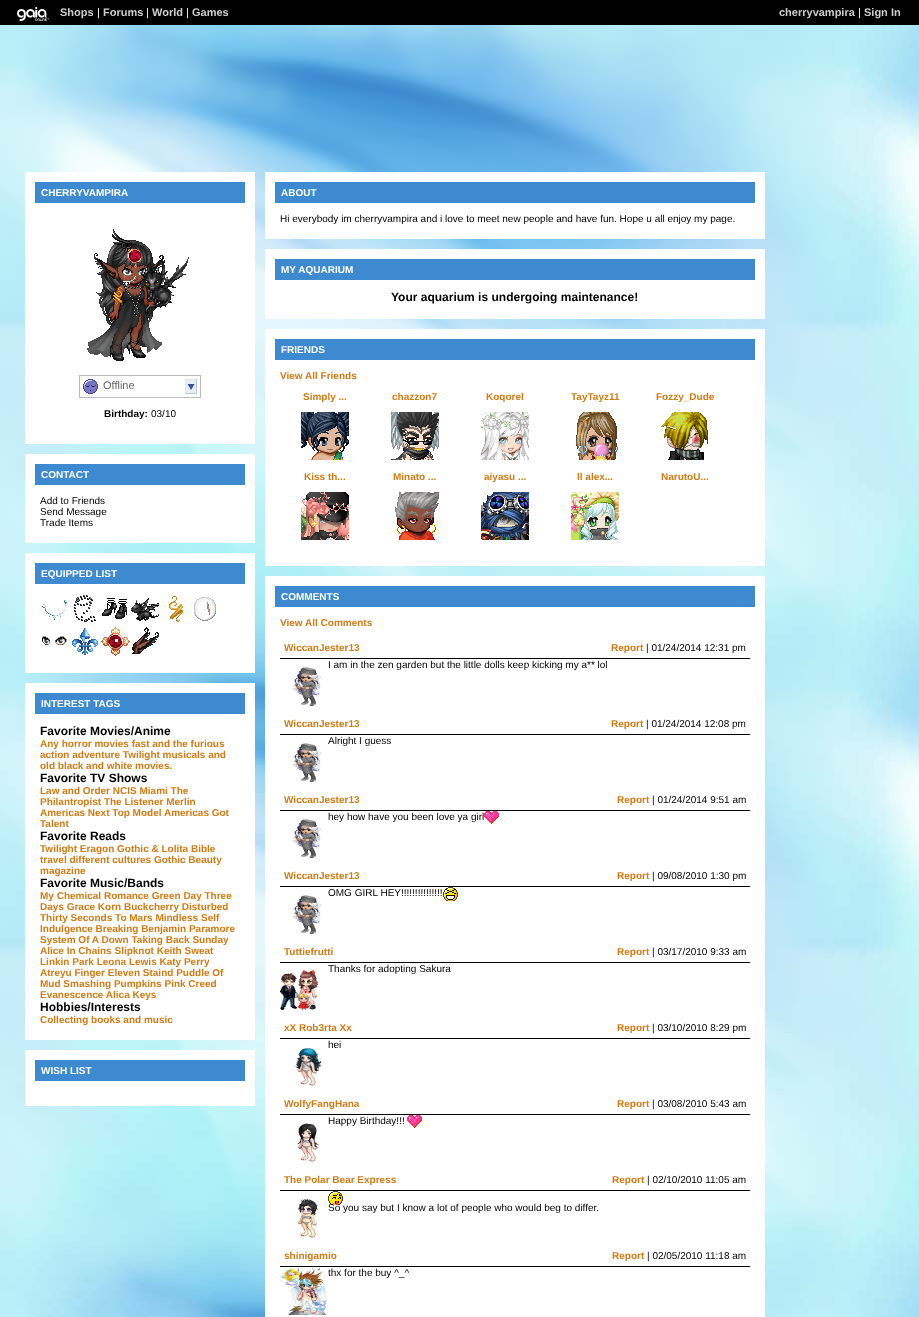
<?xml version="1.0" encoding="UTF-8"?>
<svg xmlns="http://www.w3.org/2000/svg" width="919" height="1317">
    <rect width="100%" height="100%" fill="#FFFFFF"/>
    <image x="0" y="25" width="919" height="1292" href="img_01.png"/>
    <rect x="0" y="0" width="919" height="25" fill="#000000"/>
    <image x="17" y="7" width="32" height="14" href="img_02.png"/>
    <text x="60" y="16" font-family="Liberation Sans" font-size="11" font-weight="700" fill="#CCCCCC">Shops</text>
    <text x="97" y="16" font-family="Liberation Sans" font-size="11" fill="#FFFFFF">|</text>
    <text x="103" y="16" font-family="Liberation Sans" font-size="11" font-weight="700" fill="#CCCCCC">Forums</text>
    <text x="146" y="16" font-family="Liberation Sans" font-size="11" fill="#FFFFFF">|</text>
    <text x="152" y="16" font-family="Liberation Sans" font-size="11" font-weight="700" fill="#CCCCCC">World</text>
    <text x="186" y="16" font-family="Liberation Sans" font-size="11" fill="#FFFFFF">|</text>
    <text x="192" y="16" font-family="Liberation Sans" font-size="11" font-weight="700" fill="#CCCCCC">Games</text>
    <text x="779" y="16" font-family="Liberation Sans" font-size="11" font-weight="700" fill="#CCCCCC">cherryvampira</text>
    <text x="858" y="16" font-family="Liberation Sans" font-size="11" fill="#FFFFFF">|</text>
    <text x="864" y="16" font-family="Liberation Sans" font-size="11" font-weight="700" fill="#CCCCCC">Sign In</text>
    <rect x="25" y="172" width="230" height="272" fill="#FFFFFF"/>
    <rect x="35" y="182" width="210" height="21" fill="#3D8AD0"/>
    <text x="41" y="196" font-family="Liberation Sans" font-size="10" font-weight="700" fill="#FFFFFF">CHERRYVAMPIRA</text>
    <image x="87" y="229" width="102" height="132" href="img_03.png"/>
    <rect x="79.5" y="375.5" width="121" height="22" fill="none" stroke="#BBBBBB"/>
    <image x="185" y="379" width="12" height="15" href="img_04.png"/>
    <image x="83" y="379" width="15" height="15" href="img_05.png"/>
    <text x="103" y="389" font-family="Liberation Sans" font-size="11" fill="#666666">Offline</text>
    <text x="104" y="417" font-family="Liberation Sans" font-size="10" font-weight="700" fill="#000000">Birthday:</text>
    <text x="151" y="417" font-family="Liberation Sans" font-size="10" fill="#000000">03/10</text>
    <rect x="25" y="454" width="230" height="89" fill="#FFFFFF"/>
    <rect x="35" y="464" width="210" height="21" fill="#3D8AD0"/>
    <text x="41" y="478" font-family="Liberation Sans" font-size="10" font-weight="700" fill="#FFFFFF">CONTACT</text>
    <text font-family="Liberation Sans" font-size="10" fill="#000000">
        <tspan x="40" y="504">Add to Friends</tspan>
        <tspan x="40" y="515">Send Message</tspan>
        <tspan x="40" y="526">Trade Items</tspan>
    </text>
    <rect x="25" y="553" width="230" height="120" fill="#FFFFFF"/>
    <rect x="35" y="563" width="210" height="21" fill="#3D8AD0"/>
    <text x="41" y="577" font-family="Liberation Sans" font-size="10" font-weight="700" fill="#FFFFFF">EQUIPPED LIST</text>
    <image x="42" y="600" width="25" height="20" href="img_06.png"/>
    <image x="74" y="595" width="22" height="27" href="img_07.png"/>
    <image x="102" y="598" width="25" height="21" href="img_08.png"/>
    <image x="131" y="598" width="28" height="23" href="img_09.png"/>
    <image x="169" y="596" width="14" height="26" href="img_10.png"/>
    <image x="194" y="597" width="22" height="24" href="img_11.png"/>
    <image x="42" y="636" width="25" height="9" href="img_12.png"/>
    <image x="72" y="628" width="26" height="27" href="img_13.png"/>
    <rect x="85" y="639" width="3" height="3" fill="#FFFFFF"/>
    <image x="101" y="627" width="29" height="29" href="img_14.png"/>
    <rect x="115" y="639" width="3" height="3" fill="#FFFFFF"/>
    <image x="132" y="627" width="27" height="27" href="img_15.png"/>
    <rect x="25" y="683" width="230" height="357" fill="#FFFFFF"/>
    <rect x="35" y="693" width="210" height="21" fill="#3D8AD0"/>
    <text x="41" y="707" font-family="Liberation Sans" font-size="10" font-weight="700" fill="#FFFFFF">INTEREST TAGS</text>
    <text x="40" y="735" font-family="Liberation Sans" font-size="12" font-weight="700" fill="#000000">Favorite Movies/Anime</text>
    <text font-family="Liberation Sans" font-size="10" font-weight="700" fill="#D37B14">
        <tspan x="40" y="747">Any horror movies fast and the furious</tspan>
        <tspan x="40" y="758">action adventure Twilight musicals and</tspan>
        <tspan x="40" y="769">old black and white movies.</tspan>
    </text>
    <text x="40" y="782" font-family="Liberation Sans" font-size="12" font-weight="700" fill="#000000">Favorite TV Shows</text>
    <text font-family="Liberation Sans" font-size="10" font-weight="700" fill="#D37B14">
        <tspan x="40" y="794">Law and Order NCIS Miami The</tspan>
        <tspan x="40" y="805">Philantropist The Listener Merlin</tspan>
        <tspan x="40" y="816">Americas Next Top Model Americas Got</tspan>
        <tspan x="40" y="827">Talent</tspan>
    </text>
    <text x="40" y="840" font-family="Liberation Sans" font-size="12" font-weight="700" fill="#000000">Favorite Reads</text>
    <text font-family="Liberation Sans" font-size="10" font-weight="700" fill="#D37B14">
        <tspan x="40" y="852">Twilight Eragon Gothic &amp; Lolita Bible</tspan>
        <tspan x="40" y="863">travel different cultures Gothic Beauty</tspan>
        <tspan x="40" y="874">magazine</tspan>
    </text>
    <text x="40" y="887" font-family="Liberation Sans" font-size="12" font-weight="700" fill="#000000">Favorite Music/Bands</text>
    <text font-family="Liberation Sans" font-size="10" font-weight="700" fill="#D37B14">
        <tspan x="40" y="899">My Chemical Romance Green Day Three</tspan>
        <tspan x="40" y="910">Days Grace Korn Buckcherry Disturbed</tspan>
        <tspan x="40" y="921">Thirty Seconds To Mars Mindless Self</tspan>
        <tspan x="40" y="932">Indulgence Breaking Benjamin Paramore</tspan>
        <tspan x="40" y="943">System Of A Down Taking Back Sunday</tspan>
        <tspan x="40" y="954">Alice In Chains Slipknot Keith Sweat</tspan>
        <tspan x="40" y="965">Linkin Park Leona Lewis Katy Perry</tspan>
        <tspan x="40" y="976">Atreyu Finger Eleven Staind Puddle Of</tspan>
        <tspan x="40" y="987">Mud Smashing Pumpkins Pink Creed</tspan>
        <tspan x="40" y="998">Evanescence Alica Keys</tspan>
    </text>
    <text x="40" y="1011" font-family="Liberation Sans" font-size="12" font-weight="700" fill="#000000">Hobbies/Interests</text>
    <text x="40" y="1023" font-family="Liberation Sans" font-size="10" font-weight="700" fill="#D37B14">Collecting books and music</text>
    <rect x="25" y="1050" width="230" height="56" fill="#FFFFFF"/>
    <rect x="35" y="1060" width="210" height="21" fill="#3D8AD0"/>
    <text x="41" y="1074" font-family="Liberation Sans" font-size="10" font-weight="700" fill="#FFFFFF">WISH LIST</text>
    <rect x="265" y="172" width="500" height="67" fill="#FFFFFF"/>
    <rect x="275" y="182" width="480" height="21" fill="#3D8AD0"/>
    <text x="281" y="196" font-family="Liberation Sans" font-size="10" font-weight="700" fill="#FFFFFF">ABOUT</text>
    <text x="280" y="222" font-family="Liberation Sans" font-size="10" fill="#000000">Hi everybody im cherryvampira and i love to meet new people and have fun. Hope u all enjoy my page.</text>
    <rect x="265" y="249" width="500" height="70" fill="#FFFFFF"/>
    <rect x="275" y="259" width="480" height="21" fill="#3D8AD0"/>
    <text x="281" y="273" font-family="Liberation Sans" font-size="10" font-weight="700" fill="#FFFFFF">MY AQUARIUM</text>
    <text x="391" y="301" font-family="Liberation Sans" font-size="12" font-weight="700" fill="#000000">Your aquarium is undergoing maintenance!</text>
    <rect x="265" y="329" width="500" height="237" fill="#FFFFFF"/>
    <rect x="275" y="339" width="480" height="21" fill="#3D8AD0"/>
    <text x="281" y="353" font-family="Liberation Sans" font-size="10" font-weight="700" fill="#FFFFFF">FRIENDS</text>
    <text x="280" y="379" font-family="Liberation Sans" font-size="10" font-weight="700" fill="#D37B14">View All Friends</text>
    <text x="303" y="400" font-family="Liberation Sans" font-size="10" font-weight="700" fill="#D37B14">Simply ...</text>
    <image x="301" y="412" width="48" height="48" href="img_16.png"/>
    <text x="392" y="400" font-family="Liberation Sans" font-size="10" font-weight="700" fill="#D37B14">chazzon7</text>
    <image x="391" y="412" width="48" height="48" href="img_17.png"/>
    <text x="486" y="400" font-family="Liberation Sans" font-size="10" font-weight="700" fill="#D37B14">Koqorel</text>
    <image x="481" y="412" width="48" height="48" href="img_18.png"/>
    <text x="571" y="400" font-family="Liberation Sans" font-size="10" font-weight="700" fill="#D37B14">TayTayz11</text>
    <image x="576" y="412" width="42" height="48" href="img_19.png"/>
    <text x="656" y="400" font-family="Liberation Sans" font-size="10" font-weight="700" fill="#D37B14">Fozzy_Dude</text>
    <image x="661" y="412" width="47" height="48" href="img_20.png"/>
    <text x="304" y="480" font-family="Liberation Sans" font-size="10" font-weight="700" fill="#D37B14">Kiss th...</text>
    <image x="301" y="492" width="48" height="48" href="img_21.png"/>
    <text x="393" y="480" font-family="Liberation Sans" font-size="10" font-weight="700" fill="#D37B14">Minato ...</text>
    <image x="395" y="492" width="44" height="48" href="img_22.png"/>
    <text x="484" y="480" font-family="Liberation Sans" font-size="10" font-weight="700" fill="#D37B14">aiyasu ...</text>
    <image x="481" y="492" width="48" height="48" href="img_23.png"/>
    <text x="577" y="480" font-family="Liberation Sans" font-size="10" font-weight="700" fill="#D37B14">ll alex...</text>
    <image x="571" y="492" width="48" height="48" href="img_24.png"/>
    <text x="661" y="480" font-family="Liberation Sans" font-size="10" font-weight="700" fill="#D37B14">NarutoU...</text>
    <rect x="265" y="576" width="500" height="741" fill="#FFFFFF"/>
    <rect x="275" y="586" width="480" height="21" fill="#3D8AD0"/>
    <text x="281" y="600" font-family="Liberation Sans" font-size="10" font-weight="700" fill="#FFFFFF">COMMENTS</text>
    <text x="280" y="626" font-family="Liberation Sans" font-size="10" font-weight="700" fill="#D37B14">View All Comments</text>
    <rect x="280" y="658" width="470" height="1" fill="#000000"/>
    <text x="284" y="651" font-family="Liberation Sans" font-size="10" font-weight="700" fill="#D37B14">WiccanJester13</text>
    <text x="611" y="651" font-family="Liberation Sans" font-size="10" font-weight="700" fill="#D37B14">Report</text>
    <text x="646" y="651" font-family="Liberation Sans" font-size="10" fill="#000000">| 01/24/2014 12:31 pm</text>
    <text x="328" y="668" font-family="Liberation Sans" font-size="10" fill="#000000">I am in the zen garden but the little dolls keep kicking my a** lol</text>
    <image x="293" y="667" width="31" height="39" href="img_25.png"/>
    <rect x="280" y="734" width="470" height="1" fill="#000000"/>
    <text x="284" y="727" font-family="Liberation Sans" font-size="10" font-weight="700" fill="#D37B14">WiccanJester13</text>
    <text x="611" y="727" font-family="Liberation Sans" font-size="10" font-weight="700" fill="#D37B14">Report</text>
    <text x="646" y="727" font-family="Liberation Sans" font-size="10" fill="#000000">| 01/24/2014 12:08 pm</text>
    <text x="328" y="744" font-family="Liberation Sans" font-size="10" fill="#000000">Alright I guess</text>
    <image x="293" y="743" width="31" height="39" href="img_25.png"/>
    <rect x="280" y="810" width="470" height="1" fill="#000000"/>
    <text x="284" y="803" font-family="Liberation Sans" font-size="10" font-weight="700" fill="#D37B14">WiccanJester13</text>
    <text x="617" y="803" font-family="Liberation Sans" font-size="10" font-weight="700" fill="#D37B14">Report</text>
    <text x="652" y="803" font-family="Liberation Sans" font-size="10" fill="#000000">| 01/24/2014 9:51 am</text>
    <text x="328" y="820" font-family="Liberation Sans" font-size="10" fill="#000000">hey how have you been love ya girl</text>
    <image x="484" y="811" width="15" height="13" href="img_26.png"/>
    <image x="293" y="819" width="31" height="39" href="img_25.png"/>
    <rect x="280" y="886" width="470" height="1" fill="#000000"/>
    <text x="284" y="879" font-family="Liberation Sans" font-size="10" font-weight="700" fill="#D37B14">WiccanJester13</text>
    <text x="617" y="879" font-family="Liberation Sans" font-size="10" font-weight="700" fill="#D37B14">Report</text>
    <text x="652" y="879" font-family="Liberation Sans" font-size="10" fill="#000000">| 09/08/2010 1:30 pm</text>
    <text x="328" y="896" font-family="Liberation Sans" font-size="10" fill="#000000">OMG GIRL HEY!!!!!!!!!!!!!!!</text>
    <image x="443" y="887" width="15" height="14" href="img_27.png"/>
    <image x="293" y="895" width="31" height="39" href="img_25.png"/>
    <rect x="280" y="962" width="470" height="1" fill="#000000"/>
    <text x="284" y="955" font-family="Liberation Sans" font-size="10" font-weight="700" fill="#D37B14">Tuttiefrutti</text>
    <text x="617" y="955" font-family="Liberation Sans" font-size="10" font-weight="700" fill="#D37B14">Report</text>
    <text x="652" y="955" font-family="Liberation Sans" font-size="10" fill="#000000">| 03/17/2010 9:33 am</text>
    <image x="280" y="970" width="39" height="41" href="img_28.png"/>
    <text x="328" y="972" font-family="Liberation Sans" font-size="10" fill="#000000">Thanks for adopting Sakura</text>
    <rect x="280" y="1038" width="470" height="1" fill="#000000"/>
    <text x="284" y="1031" font-family="Liberation Sans" font-size="10" font-weight="700" fill="#D37B14">xX Rob3rta Xx</text>
    <text x="617" y="1031" font-family="Liberation Sans" font-size="10" font-weight="700" fill="#D37B14">Report</text>
    <text x="652" y="1031" font-family="Liberation Sans" font-size="10" fill="#000000">| 03/10/2010 8:29 pm</text>
    <text x="328" y="1048" font-family="Liberation Sans" font-size="10" fill="#000000">hei</text>
    <image x="295" y="1048" width="27" height="38" href="img_29.png"/>
    <rect x="280" y="1114" width="470" height="1" fill="#000000"/>
    <text x="284" y="1107" font-family="Liberation Sans" font-size="10" font-weight="700" fill="#D37B14">WolfyFangHana</text>
    <text x="617" y="1107" font-family="Liberation Sans" font-size="10" font-weight="700" fill="#D37B14">Report</text>
    <text x="652" y="1107" font-family="Liberation Sans" font-size="10" fill="#000000">| 03/08/2010 5:43 am</text>
    <text x="328" y="1124" font-family="Liberation Sans" font-size="10" fill="#000000">Happy Birthday!!!</text>
    <image x="407" y="1115" width="15" height="13" href="img_26.png"/>
    <image x="296" y="1123" width="23" height="39" href="img_30.png"/>
    <rect x="280" y="1190" width="470" height="1" fill="#000000"/>
    <text x="284" y="1183" font-family="Liberation Sans" font-size="10" font-weight="700" fill="#D37B14">The Polar Bear Express</text>
    <text x="612" y="1183" font-family="Liberation Sans" font-size="10" font-weight="700" fill="#D37B14">Report</text>
    <text x="647" y="1183" font-family="Liberation Sans" font-size="10" fill="#000000">| 02/10/2010 11:05 am</text>
    <image x="297" y="1198" width="22" height="40" href="img_31.png"/>
    <image x="328" y="1191" width="15" height="14" href="img_32.png"/>
    <text x="328" y="1211" font-family="Liberation Sans" font-size="10" fill="#000000">So you say but I know a lot of people who would beg to differ.</text>
    <rect x="280" y="1266" width="470" height="1" fill="#000000"/>
    <text x="284" y="1259" font-family="Liberation Sans" font-size="10" font-weight="700" fill="#D37B14">shinigamio</text>
    <text x="612" y="1259" font-family="Liberation Sans" font-size="10" font-weight="700" fill="#D37B14">Report</text>
    <text x="647" y="1259" font-family="Liberation Sans" font-size="10" fill="#000000">| 02/05/2010 11:18 am</text>
    <image x="281" y="1267" width="47" height="48" href="img_33.png"/>
    <text x="328" y="1276" font-family="Liberation Sans" font-size="10" fill="#000000">thx for the buy ^_^</text>
</svg>
